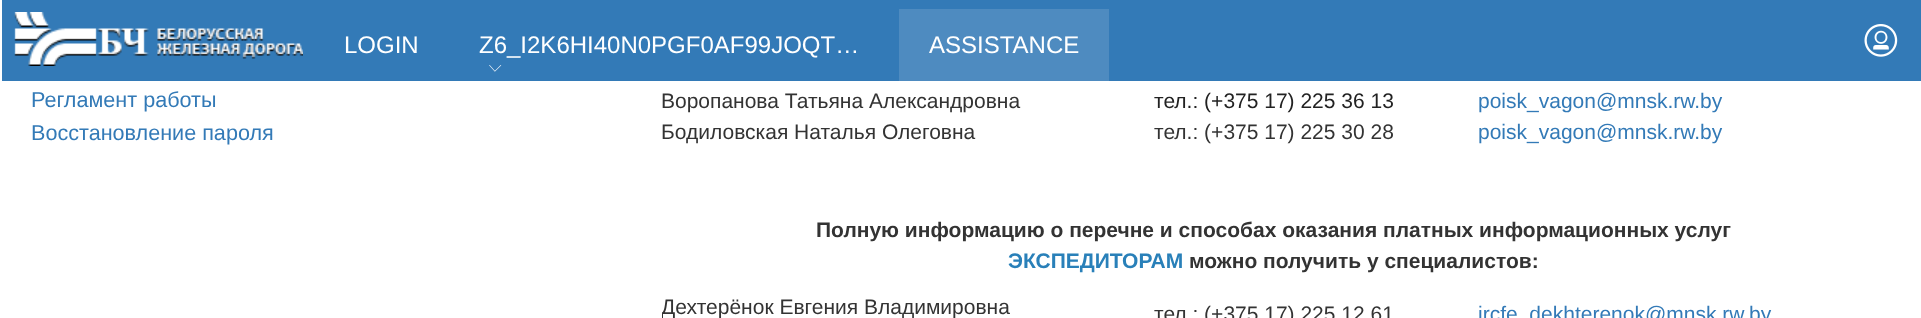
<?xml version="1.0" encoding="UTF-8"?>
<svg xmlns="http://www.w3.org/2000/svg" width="1921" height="318">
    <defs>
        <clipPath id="clip1"><rect x="662" y="0" width="1230" height="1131"/></clipPath>
    </defs>
    <rect width="100%" height="100%" fill="#FFFFFF"/>
    <rect x="2" y="0" width="1919" height="81" fill="#337AB7"/>
    <image x="14" y="12" width="289" height="54" href="img_01.png"/>
    <text x="344" y="53" font-family="Liberation Sans" font-size="24" fill="#FFFFFF">LOGIN</text>
    <text x="479" y="53" font-family="Liberation Sans" font-size="24" fill="#FFFFFF">Z6_I2K6HI40N0PGF0AF99JOQT…</text>
    <image x="489" y="65" width="13" height="7" href="img_02.png"/>
    <rect x="899" y="9" width="210" height="72" fill="#4E8BC0"/>
    <text x="929" y="53" font-family="Liberation Sans" font-size="24" fill="#FFFFFF">ASSISTANCE</text>
    <image x="1864" y="24" width="34" height="33" href="img_03.png"/>
    <text font-family="Liberation Sans" font-size="21.6" fill="#337AB7">
        <tspan x="31" y="107">Регламент работы</tspan>
        <tspan x="31" y="140">Вoсстановление пароля</tspan>
    </text>
    <text font-family="Liberation Sans" font-size="21" fill="#333333">
        <tspan x="661" y="108">Воропанова Татьяна Александровна</tspan>
        <tspan x="661" y="139">Бодиловская Наталья Олеговна</tspan>
    </text>
    <text x="1154" y="108" font-family="Liberation Sans" font-size="21" fill="#222222">тел.: (+375 17) 225 36 13</text>
    <text x="1154" y="139" font-family="Liberation Sans" font-size="21" fill="#333333">тел.: (+375 17) 225 30 28</text>
    <text font-family="Liberation Sans" font-size="21" fill="#337AB7">
        <tspan x="1478" y="108">poisk_vagon@mnsk.rw.by</tspan>
        <tspan x="1478" y="139">poisk_vagon@mnsk.rw.by</tspan>
    </text>
    <text x="816" y="237" font-family="Liberation Sans" font-size="21" font-weight="700" fill="#333333">Полную информацию о перечне и способах оказания платных информационных услуг</text>
    <text x="1008" y="268" font-family="Liberation Sans" font-size="21" font-weight="700" fill="#2980B9">ЭКСПЕДИТОРАМ</text>
    <text x="1189" y="268" font-family="Liberation Sans" font-size="21" font-weight="700" fill="#333333">можно получить у специалистов:</text>
    <g clip-path="url(#clip1)">
        <text x="661" y="314" font-family="Liberation Sans" font-size="21" fill="#333333">Дехтерёнок Евгения Владимировна</text>
    </g>
    <text x="1154" y="321" font-family="Liberation Sans" font-size="21" fill="#333333">тел.: (+375 17) 225 12 61</text>
    <text x="1478" y="321" font-family="Liberation Sans" font-size="21" fill="#337AB7">ircfe_dekhterenok@mnsk.rw.by</text>
</svg>
